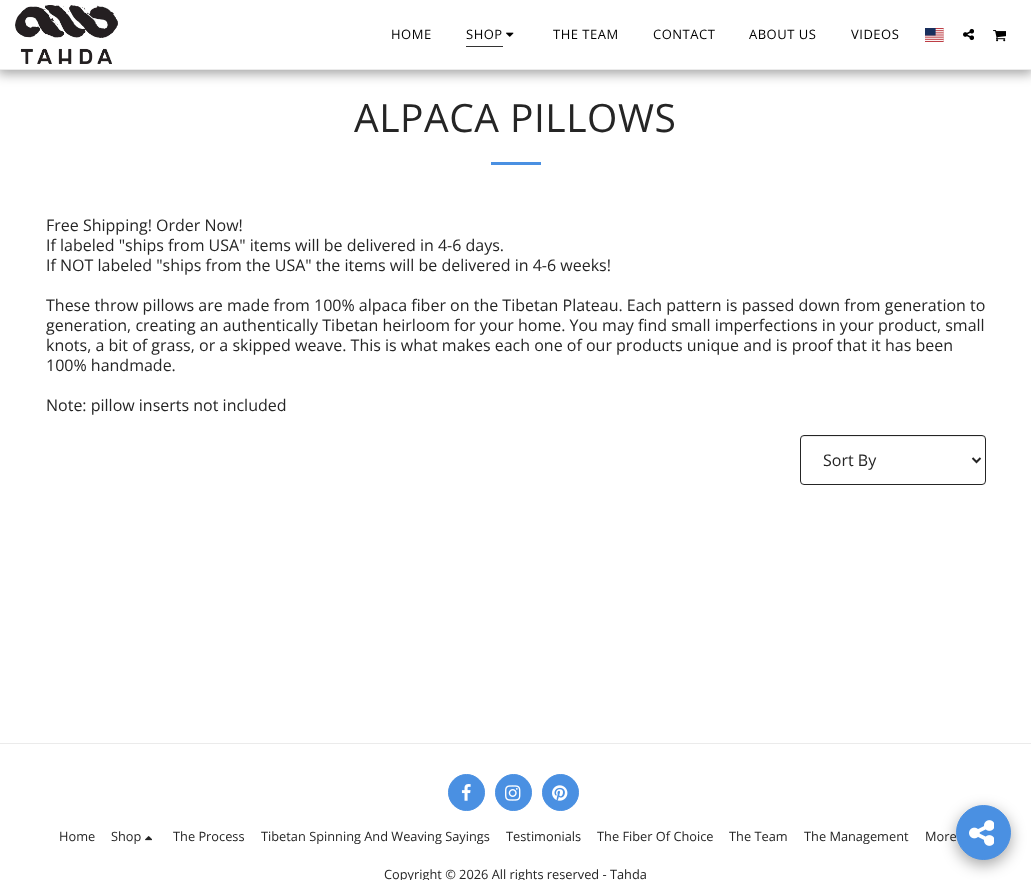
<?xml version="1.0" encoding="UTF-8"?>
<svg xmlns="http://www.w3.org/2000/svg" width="1031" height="880">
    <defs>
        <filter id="blur1" x="-50%" y="-200%" width="200%" height="500%"><feGaussianBlur stdDeviation="6"/></filter>
        <filter id="blur2" x="-50%" y="-200%" width="200%" height="500%"><feGaussianBlur stdDeviation="7.5"/></filter>
    </defs>
    <rect width="100%" height="100%" fill="#FFFFFF"/>
    <rect x="-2" y="0" width="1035" height="74" fill="#000000" fill-opacity="0.35" filter="url(#blur1)"/>
    <rect x="0" y="0" width="1031" height="69" fill="#FFFFFF"/>
    <rect x="0" y="69" width="1031" height="1" fill="#EBEBEB"/>
    <image x="15" y="5" width="103" height="59" href="img_01.png"/>
    <text x="391" y="39" font-family="Open Sans" font-size="13" letter-spacing="0.5" fill="#000000">HOME</text>
    <text x="466" y="39" font-family="Open Sans" font-size="13" letter-spacing="0.5" fill="#000000">SHOP</text>
    <rect x="466" y="46" width="37" height="1" fill="#333333"/>
    <image x="506" y="32" width="8" height="5" href="img_02.png"/>
    <text x="553" y="39" font-family="Open Sans" font-size="13" letter-spacing="0.5" fill="#000000">THE TEAM</text>
    <text x="653" y="39" font-family="Open Sans" font-size="13" letter-spacing="0.5" fill="#000000">CONTACT</text>
    <text x="749" y="39" font-family="Open Sans" font-size="13" letter-spacing="0.5" fill="#000000">ABOUT US</text>
    <text x="851" y="39" font-family="Open Sans" font-size="13" letter-spacing="0.5" fill="#000000">VIDEOS</text>
    <image x="925" y="28" width="19" height="14" href="img_03.png"/>
    <image x="963" y="28" width="11" height="13" href="img_04.png"/>
    <image x="993" y="30" width="13" height="12" href="img_05.png"/>
    <text x="354" y="132" font-family="Open Sans" font-size="39" letter-spacing="0.5" fill="#252525">ALPACA PILLOWS</text>
    <rect x="491" y="162" width="50" height="3" fill="#4A90E2"/>
    <text font-family="Open Sans" font-size="16" fill="#252525">
        <tspan x="46" y="231">Free Shipping! Order Now!</tspan>
        <tspan x="46" y="251">If labeled "ships from USA" items will be delivered in 4-6 days.</tspan>
        <tspan x="46" y="271">If NOT labeled "ships from the USA" the items will be delivered in 4-6 weeks!</tspan>
    </text>
    <text font-family="Open Sans" font-size="16" fill="#252525">
        <tspan x="46" y="311">These throw pillows are made from 100% alpaca fiber on the Tibetan Plateau. Each pattern is passed down from generation to</tspan>
        <tspan x="46" y="331">generation, creating an authentically Tibetan heirloom for your home. You may find small imperfections in your product, small</tspan>
        <tspan x="46" y="351">knots, a bit of grass, or a skipped weave. This is what makes each one of our products unique and is proof that it has been</tspan>
        <tspan x="46" y="371">100% handmade.</tspan>
    </text>
    <text x="46" y="411" font-family="Open Sans" font-size="16" fill="#252525">Note: pillow inserts not included</text>
    <path d="M 804 437 H 983 L 984 438 L 985 440 C 985 438 984 436 982 436 H 803 C 801 437 801 438 801 440 C 801 438 802 437 804 437 Z" fill="#ECECEC"/>
    <rect x="800.5" y="435.5" width="185" height="49" rx="3.5" fill="none" stroke="#252525"/>
    <path d="M 972.5 458 L 976.5 462 L 980.5 458" fill="none" stroke="#252525" stroke-width="2"/>
    <text x="823" y="466" font-family="Open Sans" font-size="16" fill="#252525">Sort By</text>
    <rect x="0" y="743" width="1031" height="1" fill="#EBEBEB"/>
    <circle cx="466.5" cy="792.5" r="18" fill="#4A90E2" stroke="#4A90E2"/>
    <image x="461" y="784" width="10" height="17" href="img_06.png"/>
    <circle cx="513.5" cy="792.5" r="18" fill="#4A90E2" stroke="#4A90E2"/>
    <image x="505" y="785" width="16" height="16" href="img_07.png"/>
    <circle cx="560.5" cy="792.5" r="18" fill="#4A90E2" stroke="#4A90E2"/>
    <image x="552" y="785" width="16" height="16" href="img_08.png"/>
    <text x="59" y="841" font-family="Open Sans" font-size="12.8" fill="#252525">Home</text>
    <text x="111" y="841" font-family="Open Sans" font-size="12.8" fill="#252525">Shop</text>
    <image x="145" y="836" width="7" height="5" href="img_09.png"/>
    <text x="173" y="841" font-family="Open Sans" font-size="12.8" fill="#252525">The Process</text>
    <text x="261" y="841" font-family="Open Sans" font-size="12.8" fill="#252525">Tibetan Spinning And Weaving Sayings</text>
    <text x="506" y="841" font-family="Open Sans" font-size="12.8" fill="#252525">Testimonials</text>
    <text x="597" y="841" font-family="Open Sans" font-size="12.8" fill="#252525">The Fiber Of Choice</text>
    <text x="729" y="841" font-family="Open Sans" font-size="12.8" fill="#252525">The Team</text>
    <text x="804" y="841" font-family="Open Sans" font-size="12.8" fill="#252525">The Management</text>
    <text x="925" y="841" font-family="Open Sans" font-size="12.8" fill="#252525">More</text>
    <text x="384" y="879" font-family="Open Sans" font-size="12.8" fill="#252525">Copyright © 2026 All rights reserved - Tahda</text>
    <rect x="956" y="810" width="55" height="55" rx="27.5" fill="#000000" fill-opacity="0.35" filter="url(#blur2)"/>
    <circle cx="983.5" cy="832.5" r="27" fill="#4A90E2" stroke="#4A90E2"/>
    <image x="969" y="820" width="25" height="26" href="img_10.png"/>
</svg>
